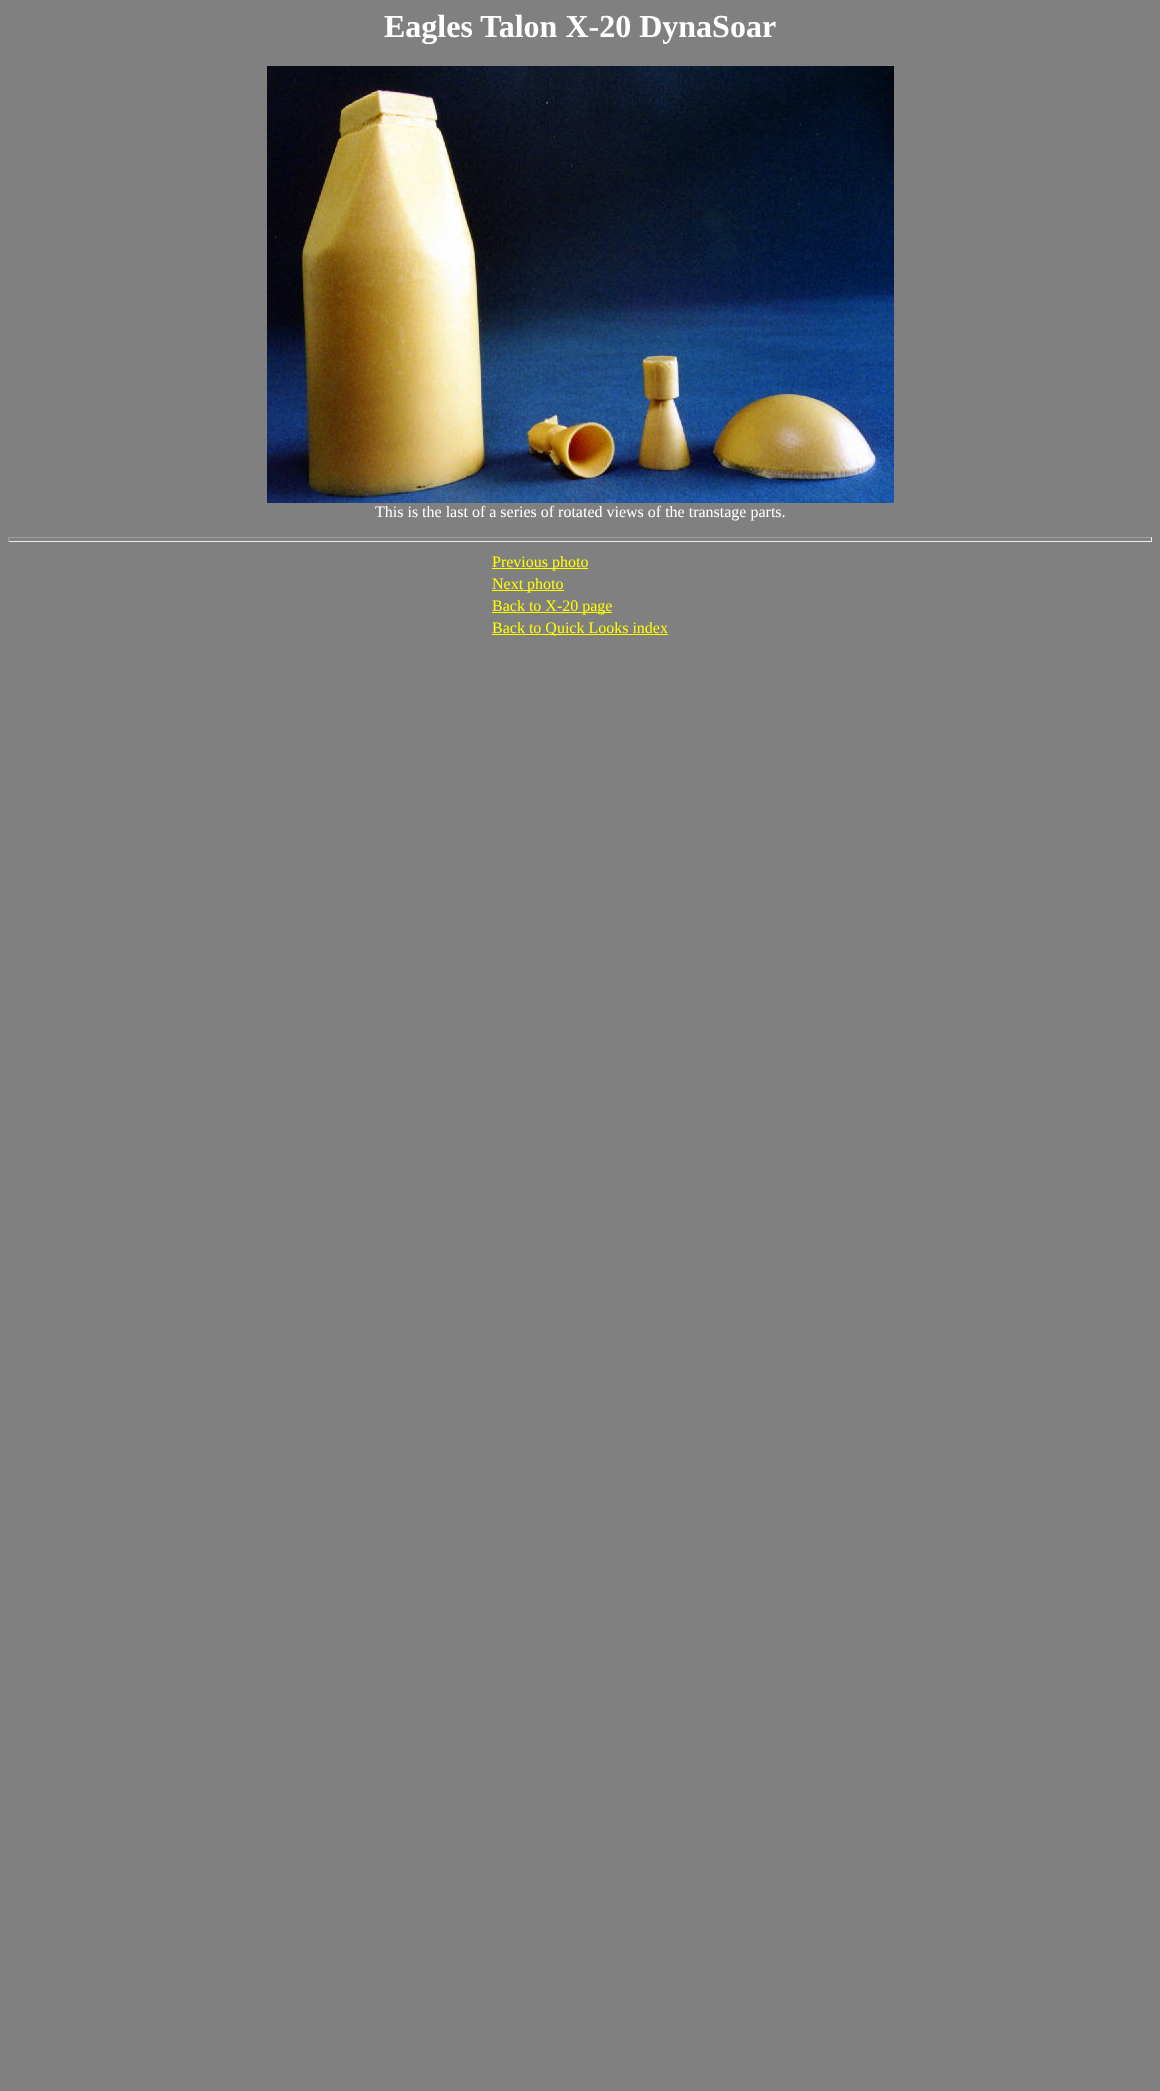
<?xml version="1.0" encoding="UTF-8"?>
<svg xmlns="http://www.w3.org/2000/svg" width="1160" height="2091">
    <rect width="100%" height="100%" fill="#808080"/>
    <text x="384" y="37" font-family="Liberation Serif" font-size="32" font-weight="700" fill="#FFFFFF">Eagles Talon X-20 DynaSoar</text>
    <image x="267" y="66" width="627" height="437" href="img_01.png"/>
    <text x="375" y="517" font-family="Liberation Serif" font-size="16" fill="#FFFFFF">This is the last of a series of rotated views of the transtage parts.</text>
    <rect x="8" y="537" width="1144" height="1" fill="#9F9F9F"/>
    <rect x="1151" y="537" width="1" height="5" fill="#EEEEEE"/>
    <rect x="8" y="541" width="1144" height="1" fill="#EEEEEE"/>
    <rect x="8" y="537" width="1" height="5" fill="#9F9F9F"/>
    <rect x="492" y="568" width="96" height="1" fill="#FFFF00"/>
    <text x="492" y="567" font-family="Liberation Serif" font-size="16" fill="#FFFF00">Previous photo</text>
    <rect x="492" y="590" width="72" height="1" fill="#FFFF00"/>
    <text x="492" y="589" font-family="Liberation Serif" font-size="16" fill="#FFFF00">Next photo</text>
    <rect x="492" y="612" width="120" height="1" fill="#FFFF00"/>
    <text x="492" y="611" font-family="Liberation Serif" font-size="16" fill="#FFFF00">Back to X-20 page</text>
    <rect x="492" y="634" width="176" height="1" fill="#FFFF00"/>
    <text x="492" y="633" font-family="Liberation Serif" font-size="16" fill="#FFFF00">Back to Quick Looks index</text>
</svg>
